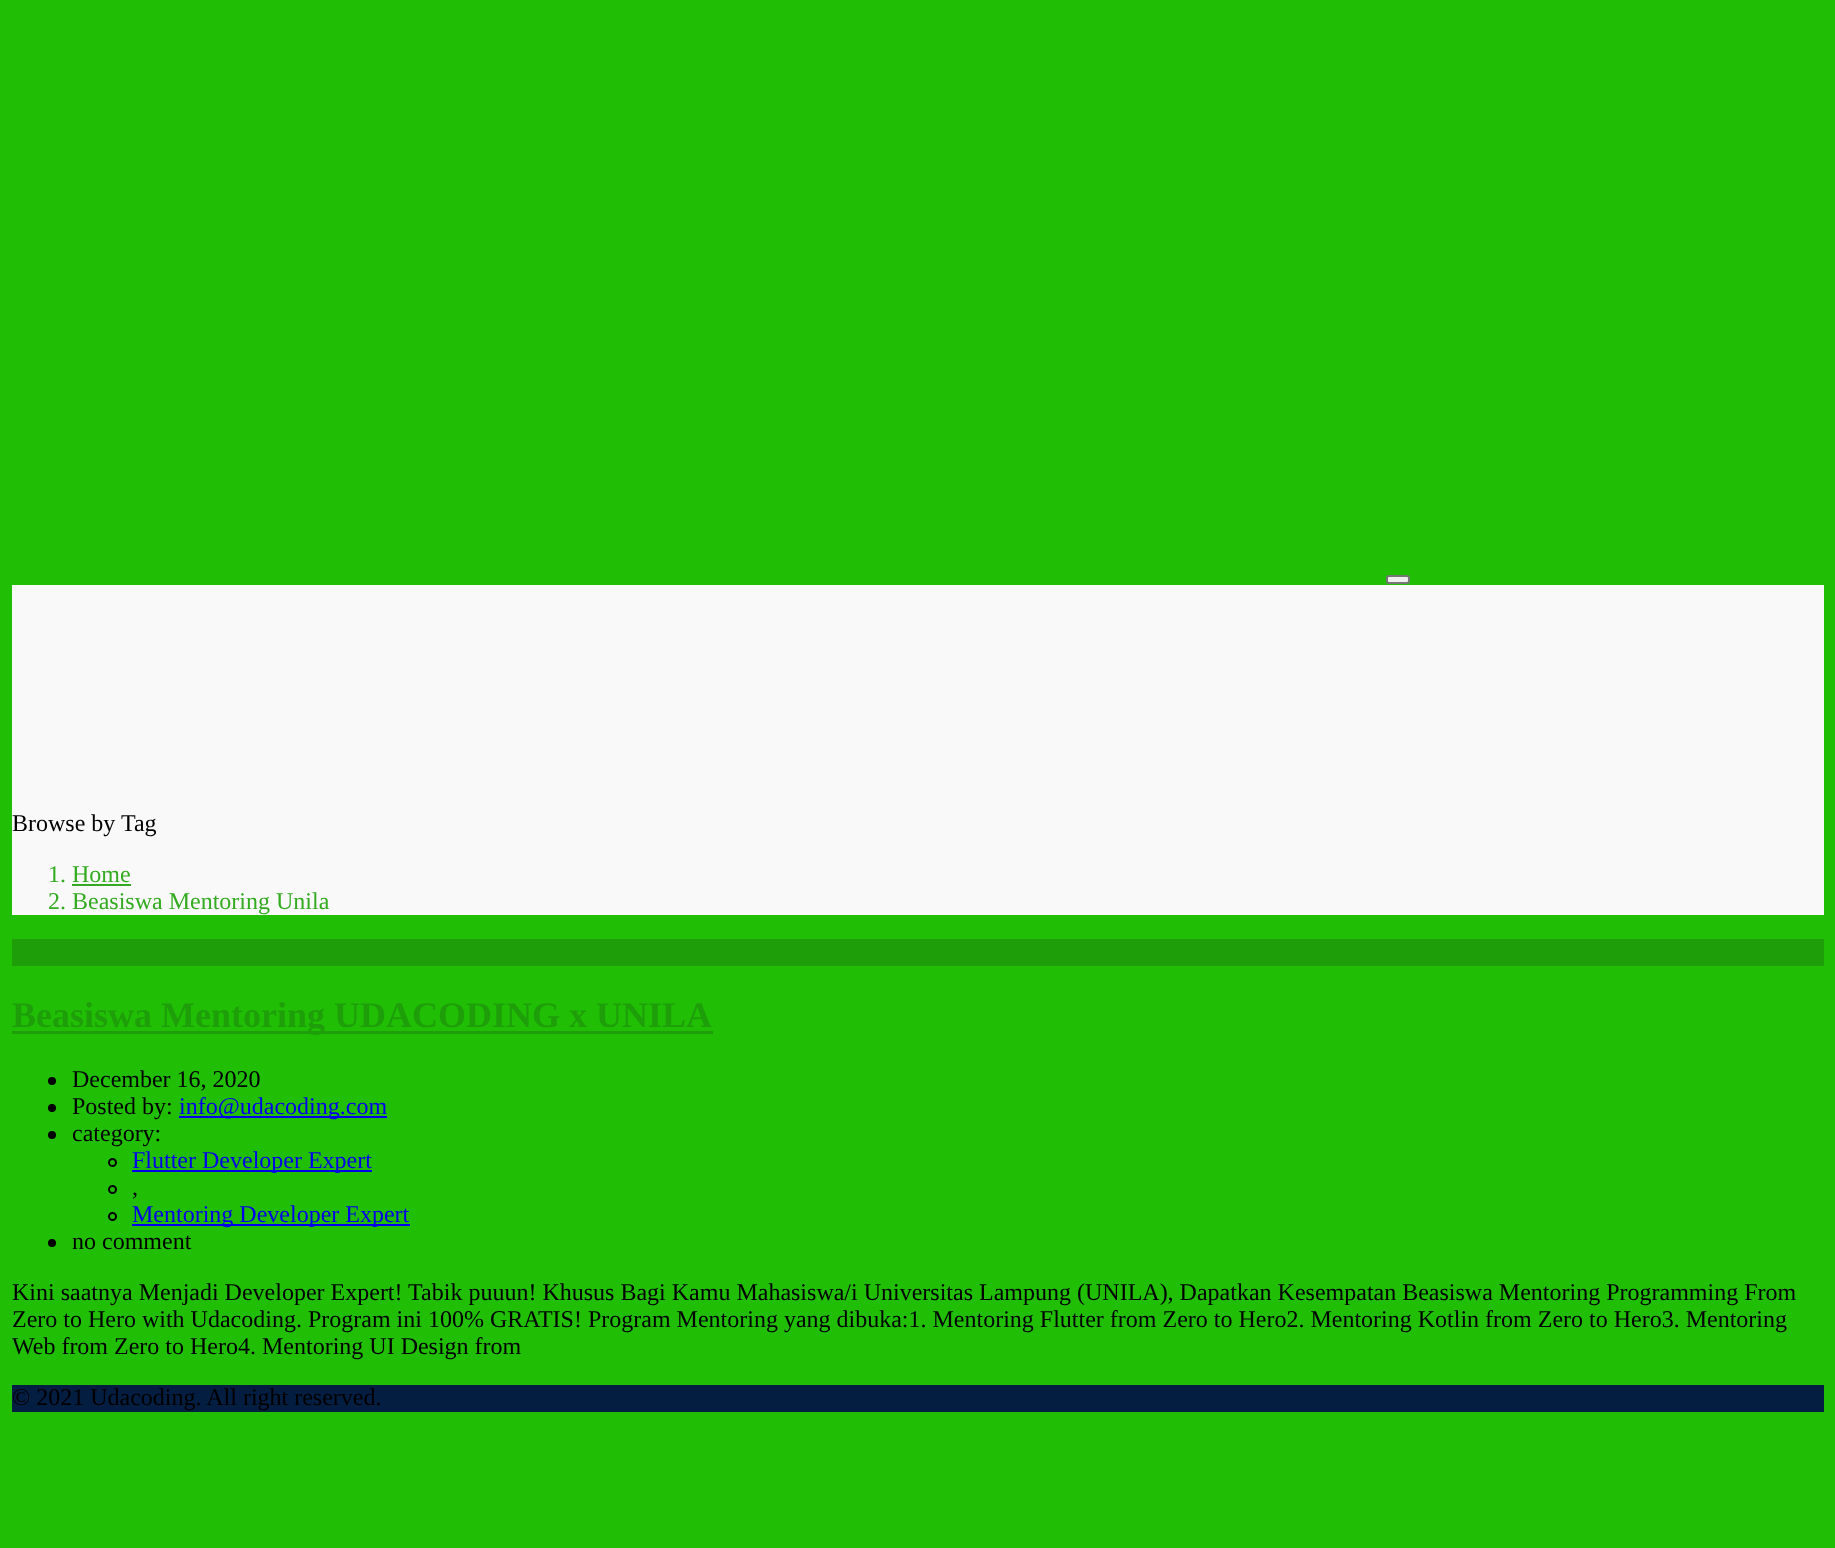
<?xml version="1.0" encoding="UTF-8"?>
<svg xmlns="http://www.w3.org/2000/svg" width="1835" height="1548">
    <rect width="100%" height="100%" fill="#20BF06"/>
    <rect x="12" y="585" width="1812" height="330" fill="#F9F9F9"/>
    <rect x="1387" y="576" width="22" height="7" rx="2" fill="#EFEFEF" stroke="#767676" stroke-width="2"/>
    <text x="12" y="831" font-family="Liberation Serif" font-size="24" fill="#000000">Browse by Tag</text>
    <text x="48" y="882" font-family="Liberation Serif" font-size="24" fill="#33AB20">1. Home</text>
    <rect x="72" y="884" width="59" height="2" fill="#33AB20"/>
    <text x="48" y="909" font-family="Liberation Serif" font-size="24" fill="#33AB20">2. Beasiswa Mentoring Unila</text>
    <rect x="12" y="939" width="1812" height="27" fill="#1E9F0A"/>
    <rect x="12" y="1031" width="701" height="3" fill="#1E9F0A"/>
    <text x="12" y="1027" font-family="Liberation Serif" font-size="36" font-weight="700" fill="#1E9F0A">Beasiswa Mentoring UDACODING x UNILA</text>
    <circle cx="52" cy="1081" r="4" fill="#000000"/>
    <text x="72" y="1087" font-family="Liberation Serif" font-size="24" fill="#000000">December 16, 2020</text>
    <circle cx="52" cy="1108" r="4" fill="#000000"/>
    <text x="72" y="1114" font-family="Liberation Serif" font-size="24" fill="#000000">Posted by:</text>
    <rect x="179" y="1116" width="208" height="2" fill="#0000EE"/>
    <text x="179" y="1114" font-family="Liberation Serif" font-size="24" fill="#0000EE">info@udacoding.com</text>
    <circle cx="52" cy="1135" r="4" fill="#000000"/>
    <text x="72" y="1141" font-family="Liberation Serif" font-size="24" fill="#000000">category:</text>
    <circle cx="112.5" cy="1162.5" r="3.5" fill="none" stroke="#000000" stroke-width="2"/>
    <rect x="132" y="1170" width="240" height="2" fill="#0000EE"/>
    <text x="132" y="1168" font-family="Liberation Serif" font-size="24" fill="#0000EE">Flutter Developer Expert</text>
    <circle cx="112.5" cy="1189.5" r="3.5" fill="none" stroke="#000000" stroke-width="2"/>
    <text x="132" y="1195" font-family="Liberation Serif" font-size="24" fill="#000000">,</text>
    <circle cx="112.5" cy="1216.5" r="3.5" fill="none" stroke="#000000" stroke-width="2"/>
    <rect x="132" y="1224" width="278" height="2" fill="#0000EE"/>
    <text x="132" y="1222" font-family="Liberation Serif" font-size="24" fill="#0000EE">Mentoring Developer Expert</text>
    <circle cx="52" cy="1243" r="4" fill="#000000"/>
    <text x="72" y="1249" font-family="Liberation Serif" font-size="24" fill="#000000">no comment</text>
    <text font-family="Liberation Serif" font-size="24" fill="#000000">
        <tspan x="12" y="1300">Kini saatnya Menjadi Developer Expert! Tabik puuun! Khusus Bagi Kamu Mahasiswa/i Universitas Lampung (UNILA), Dapatkan Kesempatan Beasiswa Mentoring Programming From</tspan>
        <tspan x="12" y="1327">Zero to Hero with Udacoding. Program ini 100% GRATIS! Program Mentoring yang dibuka:1. Mentoring Flutter from Zero to Hero2. Mentoring Kotlin from Zero to Hero3. Mentoring</tspan>
        <tspan x="12" y="1354">Web from Zero to Hero4. Mentoring UI Design from</tspan>
    </text>
    <rect x="12" y="1385" width="1812" height="27" fill="#041E42"/>
    <text x="12" y="1405" font-family="Liberation Serif" font-size="24" fill="#000000">© 2021 Udacoding. All right reserved.</text>
</svg>
